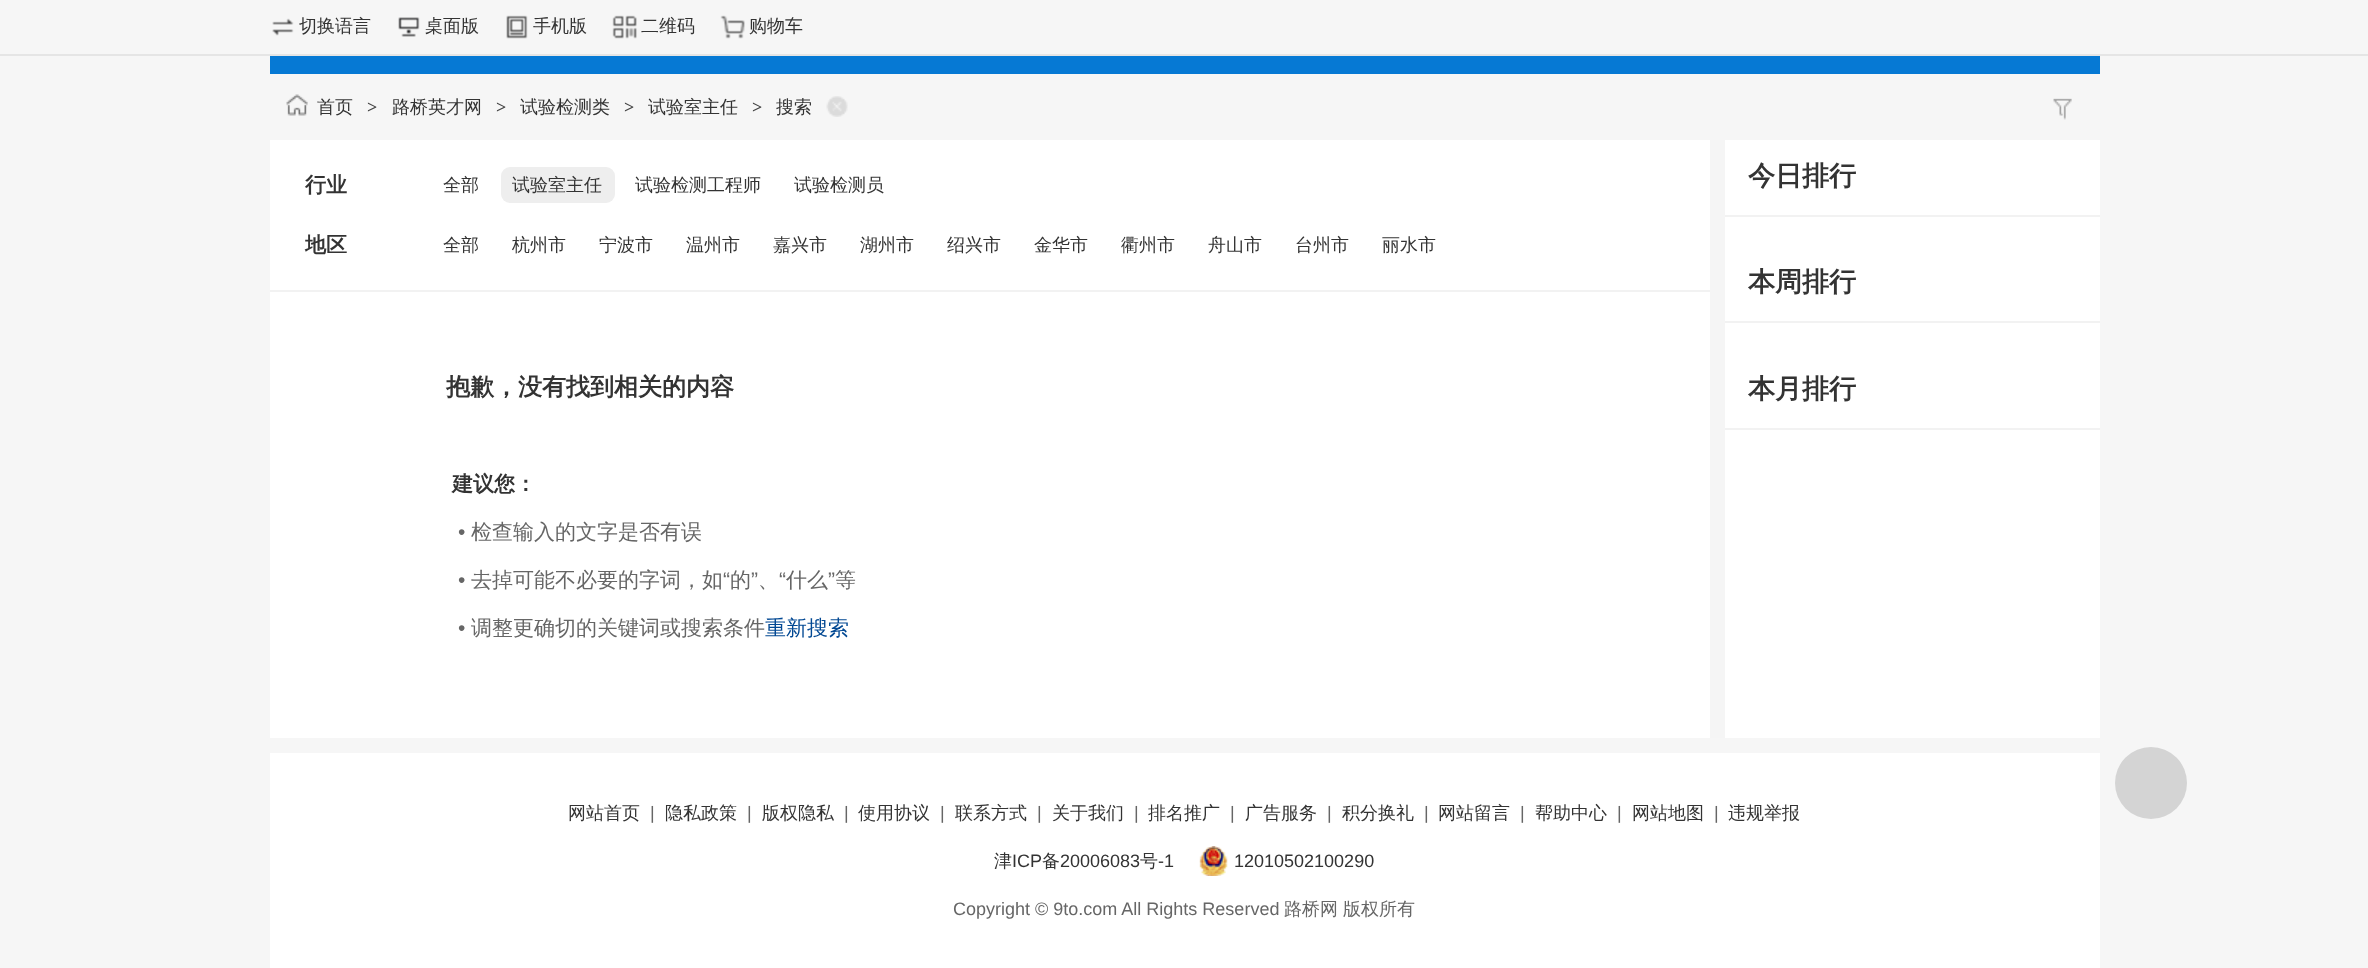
<?xml version="1.0" encoding="UTF-8"?>
<svg xmlns="http://www.w3.org/2000/svg" width="2368" height="968">
    <rect width="100%" height="100%" fill="#F6F6F6"/>
    <rect x="0" y="54" width="2368" height="2" fill="#E5E5E5"/>
    <image x="272" y="18" width="22" height="18" href="img_01.png"/>
    <text x="299" y="32" font-family="WenQuanYi Zen Hei" font-size="18" font-weight="500" fill="#333333">切换语言</text>
    <image x="398" y="17" width="22" height="20" href="img_02.png"/>
    <text x="425" y="32" font-family="WenQuanYi Zen Hei" font-size="18" font-weight="500" fill="#333333">桌面版</text>
    <image x="506" y="15" width="22" height="24" href="img_03.png"/>
    <text x="533" y="32" font-family="WenQuanYi Zen Hei" font-size="18" font-weight="500" fill="#333333">手机版</text>
    <image x="612" y="15" width="25" height="24" href="img_04.png"/>
    <text x="641" y="32" font-family="WenQuanYi Zen Hei" font-size="18" font-weight="500" fill="#333333">二维码</text>
    <image x="720" y="15" width="25" height="24" href="img_05.png"/>
    <text x="749" y="32" font-family="WenQuanYi Zen Hei" font-size="18" font-weight="500" fill="#333333">购物车</text>
    <rect x="270" y="56" width="1830" height="18" fill="#0679D4"/>
    <image x="286" y="94" width="22" height="22" href="img_06.png"/>
    <text x="317" y="113" font-family="WenQuanYi Zen Hei" font-size="18" font-weight="500" fill="#333333">首页</text>
    <text x="367" y="113" font-family="Liberation Serif" font-size="18" font-weight="700" fill="#444444">&gt;</text>
    <text x="392" y="113" font-family="WenQuanYi Zen Hei" font-size="18" font-weight="500" fill="#333333">路桥英才网</text>
    <text x="496" y="113" font-family="Liberation Serif" font-size="18" font-weight="700" fill="#444444">&gt;</text>
    <text x="520" y="113" font-family="WenQuanYi Zen Hei" font-size="18" font-weight="500" fill="#333333">试验检测类</text>
    <text x="624" y="113" font-family="Liberation Serif" font-size="18" font-weight="700" fill="#444444">&gt;</text>
    <text x="648" y="113" font-family="WenQuanYi Zen Hei" font-size="18" font-weight="500" fill="#333333">试验室主任</text>
    <text x="752" y="113" font-family="Liberation Serif" font-size="18" font-weight="700" fill="#444444">&gt;</text>
    <text x="776" y="113" font-family="WenQuanYi Zen Hei" font-size="18" font-weight="500" fill="#333333">搜索</text>
    <image x="826" y="96" width="22" height="21" href="img_07.png"/>
    <image x="2053" y="98" width="19" height="22" href="img_08.png"/>
    <rect x="270" y="140" width="1830" height="598" fill="#FFFFFF"/>
    <rect x="1710" y="140" width="15" height="598" fill="#F5F5F5"/>
    <rect x="270" y="290" width="1440" height="2" fill="#F2F2F2"/>
    <text x="305" y="192" font-family="WenQuanYi Zen Hei" font-size="21" font-weight="700" fill="#333333">行业</text>
    <text x="443" y="191" font-family="WenQuanYi Zen Hei" font-size="18" font-weight="500" fill="#333333">全部</text>
    <rect x="501" y="167" width="114" height="36" rx="9" fill="#EEEEEE"/>
    <text x="512" y="191" font-family="WenQuanYi Zen Hei" font-size="18" font-weight="500" fill="#333333">试验室主任</text>
    <text x="635" y="191" font-family="WenQuanYi Zen Hei" font-size="18" font-weight="500" fill="#333333">试验检测工程师</text>
    <text x="794" y="191" font-family="WenQuanYi Zen Hei" font-size="18" font-weight="500" fill="#333333">试验检测员</text>
    <text x="305" y="252" font-family="WenQuanYi Zen Hei" font-size="21" font-weight="700" fill="#333333">地区</text>
    <text x="443" y="251" font-family="WenQuanYi Zen Hei" font-size="18" font-weight="500" fill="#333333">全部</text>
    <text x="512" y="251" font-family="WenQuanYi Zen Hei" font-size="18" font-weight="500" fill="#333333">杭州市</text>
    <text x="599" y="251" font-family="WenQuanYi Zen Hei" font-size="18" font-weight="500" fill="#333333">宁波市</text>
    <text x="686" y="251" font-family="WenQuanYi Zen Hei" font-size="18" font-weight="500" fill="#333333">温州市</text>
    <text x="773" y="251" font-family="WenQuanYi Zen Hei" font-size="18" font-weight="500" fill="#333333">嘉兴市</text>
    <text x="860" y="251" font-family="WenQuanYi Zen Hei" font-size="18" font-weight="500" fill="#333333">湖州市</text>
    <text x="947" y="251" font-family="WenQuanYi Zen Hei" font-size="18" font-weight="500" fill="#333333">绍兴市</text>
    <text x="1034" y="251" font-family="WenQuanYi Zen Hei" font-size="18" font-weight="500" fill="#333333">金华市</text>
    <text x="1121" y="251" font-family="WenQuanYi Zen Hei" font-size="18" font-weight="500" fill="#333333">衢州市</text>
    <text x="1208" y="251" font-family="WenQuanYi Zen Hei" font-size="18" font-weight="500" fill="#333333">舟山市</text>
    <text x="1295" y="251" font-family="WenQuanYi Zen Hei" font-size="18" font-weight="500" fill="#333333">台州市</text>
    <text x="1382" y="251" font-family="WenQuanYi Zen Hei" font-size="18" font-weight="500" fill="#333333">丽水市</text>
    <text x="446" y="395" font-family="WenQuanYi Zen Hei" font-size="24" font-weight="700" fill="#333333">抱歉，没有找到相关的内容</text>
    <text x="452" y="491" font-family="WenQuanYi Zen Hei" font-size="21" font-weight="700" fill="#333333">建议您：</text>
    <text x="458" y="539" font-family="Liberation Sans" font-size="21" fill="#666666">•</text>
    <text x="471" y="539" font-family="WenQuanYi Zen Hei" font-size="21" font-weight="500" fill="#666666">检查输入的文字是否有误</text>
    <text x="471" y="587" font-family="WenQuanYi Zen Hei" font-size="21" font-weight="500" fill="#666666">去掉可能不必要的字词，如</text>
    <text x="723" y="587" font-family="Liberation Sans" font-size="21" fill="#666666">“</text>
    <text x="730" y="587" font-family="WenQuanYi Zen Hei" font-size="21" font-weight="500" fill="#666666">的</text>
    <text x="751" y="587" font-family="Liberation Sans" font-size="21" fill="#666666">”</text>
    <text x="779" y="587" font-family="Liberation Sans" font-size="21" fill="#666666">“</text>
    <text x="786" y="587" font-family="WenQuanYi Zen Hei" font-size="21" font-weight="500" fill="#666666">什么</text>
    <text x="828" y="587" font-family="Liberation Sans" font-size="21" fill="#666666">”</text>
    <text x="835" y="587" font-family="WenQuanYi Zen Hei" font-size="21" font-weight="500" fill="#666666">等</text>
    <text x="458" y="587" font-family="Liberation Sans" font-size="21" fill="#666666">•</text>
    <text x="758" y="587" font-family="WenQuanYi Zen Hei" font-size="21" font-weight="500" fill="#666666">、</text>
    <text x="458" y="635" font-family="Liberation Sans" font-size="21" fill="#666666">•</text>
    <text x="471" y="635" font-family="WenQuanYi Zen Hei" font-size="21" font-weight="500" fill="#666666">调整更确切的关键词或搜索条件</text>
    <text x="765" y="635" font-family="WenQuanYi Zen Hei" font-size="21" font-weight="500" fill="#024893">重新搜索</text>
    <rect x="1725" y="215" width="375" height="2" fill="#F2F2F2"/>
    <text x="1748" y="185" font-family="WenQuanYi Zen Hei" font-size="27" font-weight="700" fill="#333333">今日排行</text>
    <rect x="1725" y="321" width="375" height="2" fill="#F2F2F2"/>
    <text x="1748" y="291" font-family="WenQuanYi Zen Hei" font-size="27" font-weight="700" fill="#333333">本周排行</text>
    <rect x="1725" y="428" width="375" height="2" fill="#F2F2F2"/>
    <text x="1748" y="398" font-family="WenQuanYi Zen Hei" font-size="27" font-weight="700" fill="#333333">本月排行</text>
    <circle cx="2151" cy="783" r="36" fill="#D4D4D4"/>
    <rect x="270" y="753" width="1830" height="215" fill="#FFFFFF"/>
    <text x="568" y="819" font-family="WenQuanYi Zen Hei" font-size="18" font-weight="500" fill="#333333">网站首页</text>
    <text x="650" y="819" font-family="Liberation Sans" font-size="18" fill="#666666">|</text>
    <text x="665" y="819" font-family="WenQuanYi Zen Hei" font-size="18" font-weight="500" fill="#333333">隐私政策</text>
    <text x="747" y="819" font-family="Liberation Sans" font-size="18" fill="#666666">|</text>
    <text x="762" y="819" font-family="WenQuanYi Zen Hei" font-size="18" font-weight="500" fill="#333333">版权隐私</text>
    <text x="844" y="819" font-family="Liberation Sans" font-size="18" fill="#666666">|</text>
    <text x="858" y="819" font-family="WenQuanYi Zen Hei" font-size="18" font-weight="500" fill="#333333">使用协议</text>
    <text x="940" y="819" font-family="Liberation Sans" font-size="18" fill="#666666">|</text>
    <text x="955" y="819" font-family="WenQuanYi Zen Hei" font-size="18" font-weight="500" fill="#333333">联系方式</text>
    <text x="1037" y="819" font-family="Liberation Sans" font-size="18" fill="#666666">|</text>
    <text x="1052" y="819" font-family="WenQuanYi Zen Hei" font-size="18" font-weight="500" fill="#333333">关于我们</text>
    <text x="1134" y="819" font-family="Liberation Sans" font-size="18" fill="#666666">|</text>
    <text x="1148" y="819" font-family="WenQuanYi Zen Hei" font-size="18" font-weight="500" fill="#333333">排名推广</text>
    <text x="1230" y="819" font-family="Liberation Sans" font-size="18" fill="#666666">|</text>
    <text x="1245" y="819" font-family="WenQuanYi Zen Hei" font-size="18" font-weight="500" fill="#333333">广告服务</text>
    <text x="1327" y="819" font-family="Liberation Sans" font-size="18" fill="#666666">|</text>
    <text x="1342" y="819" font-family="WenQuanYi Zen Hei" font-size="18" font-weight="500" fill="#333333">积分换礼</text>
    <text x="1424" y="819" font-family="Liberation Sans" font-size="18" fill="#666666">|</text>
    <text x="1438" y="819" font-family="WenQuanYi Zen Hei" font-size="18" font-weight="500" fill="#333333">网站留言</text>
    <text x="1520" y="819" font-family="Liberation Sans" font-size="18" fill="#666666">|</text>
    <text x="1535" y="819" font-family="WenQuanYi Zen Hei" font-size="18" font-weight="500" fill="#333333">帮助中心</text>
    <text x="1617" y="819" font-family="Liberation Sans" font-size="18" fill="#666666">|</text>
    <text x="1632" y="819" font-family="WenQuanYi Zen Hei" font-size="18" font-weight="500" fill="#333333">网站地图</text>
    <text x="1714" y="819" font-family="Liberation Sans" font-size="18" fill="#666666">|</text>
    <text x="1728" y="819" font-family="WenQuanYi Zen Hei" font-size="18" font-weight="500" fill="#333333">违规举报</text>
    <text x="994" y="867" font-family="WenQuanYi Zen Hei" font-size="18" font-weight="500" fill="#333333">津</text>
    <text x="1012" y="867" font-family="Liberation Sans" font-size="18" fill="#333333">ICP</text>
    <text x="1042" y="867" font-family="WenQuanYi Zen Hei" font-size="18" font-weight="500" fill="#333333">备</text>
    <text x="1060" y="867" font-family="Liberation Sans" font-size="18" fill="#333333">20006083</text>
    <text x="1140" y="867" font-family="WenQuanYi Zen Hei" font-size="18" font-weight="500" fill="#333333">号</text>
    <text x="1158" y="867" font-family="Liberation Sans" font-size="18" fill="#333333">-1</text>
    <image x="1199" y="846" width="29" height="30" href="img_09.png"/>
    <text x="1234" y="867" font-family="Liberation Sans" font-size="18" fill="#333333">12010502100290</text>
    <text x="953" y="915" font-family="Liberation Sans" font-size="18" fill="#666666">Copyright © 9to.com All Rights Reserved</text>
    <text x="1284" y="915" font-family="WenQuanYi Zen Hei" font-size="18" font-weight="500" fill="#666666">路桥网</text>
    <text x="1343" y="915" font-family="WenQuanYi Zen Hei" font-size="18" font-weight="500" fill="#666666">版权所有</text>
</svg>
